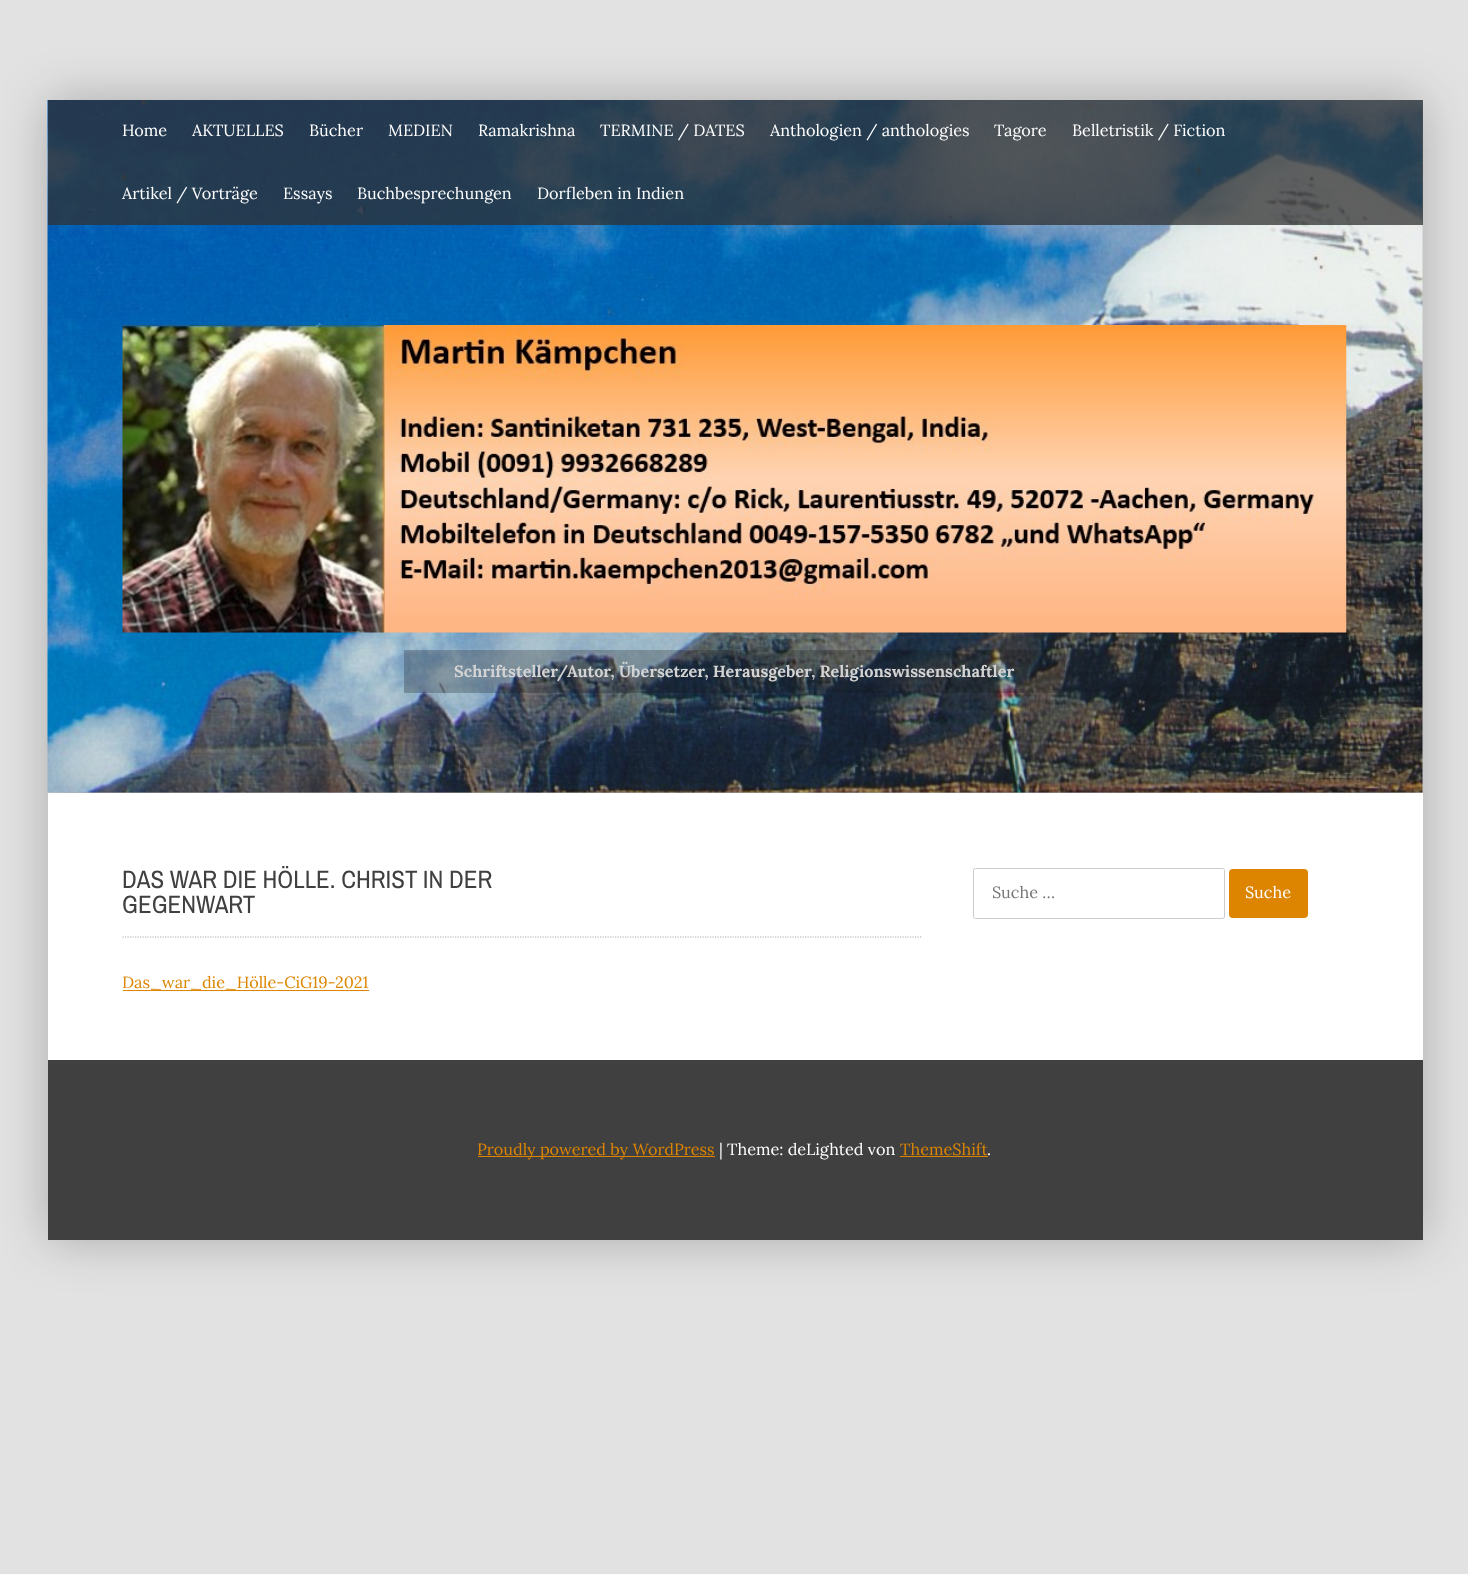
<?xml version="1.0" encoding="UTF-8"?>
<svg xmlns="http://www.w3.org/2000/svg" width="1468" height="1574">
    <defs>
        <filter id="blur1" x="-50%" y="-200%" width="200%" height="500%"><feGaussianBlur stdDeviation="25"/></filter>
        <clipPath id="clip1"><rect x="993" y="883" width="196" height="21"/></clipPath>
    </defs>
    <rect width="100%" height="100%" fill="#E2E2E2"/>
    <rect x="48" y="100" width="1375" height="1140" fill="#000000" fill-opacity="0.25" filter="url(#blur1)"/>
    <image x="47" y="100" width="1376" height="693" href="img_01.png"/>
    <rect x="48" y="100" width="1375" height="125" fill="#303030" fill-opacity="0.75"/>
    <text x="122" y="136" font-family="Lora" font-size="16.25" fill="#FFFFFF">Home</text>
    <text x="192" y="136" font-family="Lora" font-size="16.25" fill="#FFFFFF">AKTUELLES</text>
    <text x="309" y="136" font-family="Lora" font-size="16.25" fill="#FFFFFF">Bücher</text>
    <text x="388" y="136" font-family="Lora" font-size="16.25" fill="#FFFFFF">MEDIEN</text>
    <text x="478" y="136" font-family="Lora" font-size="16.25" fill="#FFFFFF">Ramakrishna</text>
    <text x="600" y="136" font-family="Lora" font-size="16.25" fill="#FFFFFF">TERMINE / DATES</text>
    <text x="770" y="136" font-family="Lora" font-size="16.25" fill="#FFFFFF">Anthologien / anthologies</text>
    <text x="994" y="136" font-family="Lora" font-size="16.25" fill="#FFFFFF">Tagore</text>
    <text x="1072" y="136" font-family="Lora" font-size="16.25" fill="#FFFFFF">Belletristik / Fiction</text>
    <text x="122" y="199" font-family="Lora" font-size="16.25" fill="#FFFFFF">Artikel / Vorträge</text>
    <text x="283" y="199" font-family="Lora" font-size="16.25" fill="#FFFFFF">Essays</text>
    <text x="357" y="199" font-family="Lora" font-size="16.25" fill="#FFFFFF">Buchbesprechungen</text>
    <text x="537" y="199" font-family="Lora" font-size="16.25" fill="#FFFFFF">Dorfleben in Indien</text>
    <image x="122" y="325" width="1225" height="308" href="img_02.png"/>
    <rect x="404" y="650" width="661" height="43" fill="#141414" fill-opacity="0.25"/>
    <text x="454" y="677" font-family="Lora" font-size="16.25" font-weight="700" fill="#D3D3D3">Schriftsteller/Autor, Übersetzer, Herausgeber, Religionswissenschaftler</text>
    <rect x="48" y="793" width="1375" height="267" fill="#FFFFFF"/>
    <path d="M 122.5 937 H 922.5" fill="none" stroke="#B0B0B0" stroke-width="1.2" stroke-dasharray="1.25 1.25"/>
    <text font-family="Archivo Narrow" font-size="25" fill="#404040">
        <tspan x="122" y="888">DAS WAR DIE HÖLLE. CHRIST IN DER</tspan>
        <tspan x="122" y="913">GEGENWART</tspan>
    </text>
    <text x="122" y="988" font-family="Lora" font-size="16.25" fill="#DD8500">Das_war_die_Hölle-CiG19-2021</text>
    <rect x="123" y="990" width="246" height="1" fill="#DD8500"/>
    <rect x="973.5" y="868.5" width="251" height="50" rx="2" fill="none" stroke="#CCCCCC"/>
    <g clip-path="url(#clip1)">
        <text x="992" y="898" font-family="Lora" font-size="16.25" fill="#757575">Suche …</text>
    </g>
    <rect x="1229" y="869" width="79" height="49" rx="4" fill="#DD8500"/>
    <text x="1245" y="898" font-family="Lora" font-size="16.25" fill="#FFFFFF">Suche</text>
    <rect x="48" y="1060" width="1375" height="180" fill="#404040"/>
    <rect x="478" y="1156" width="237" height="1" fill="#DD8500"/>
    <text x="477" y="1155" font-family="Lora" font-size="16.25" fill="#DD8500">Proudly powered by WordPress</text>
    <text x="719" y="1155" font-family="Lora" font-size="16.25" fill="#FFFFFF">| Theme: deLighted von</text>
    <text x="900" y="1155" font-family="Lora" font-size="16.25" fill="#DD8500">ThemeShift</text>
    <rect x="900" y="1156" width="88" height="1" fill="#DD8500"/>
    <text x="987" y="1155" font-family="Lora" font-size="16.25" fill="#FFFFFF">.</text>
</svg>
